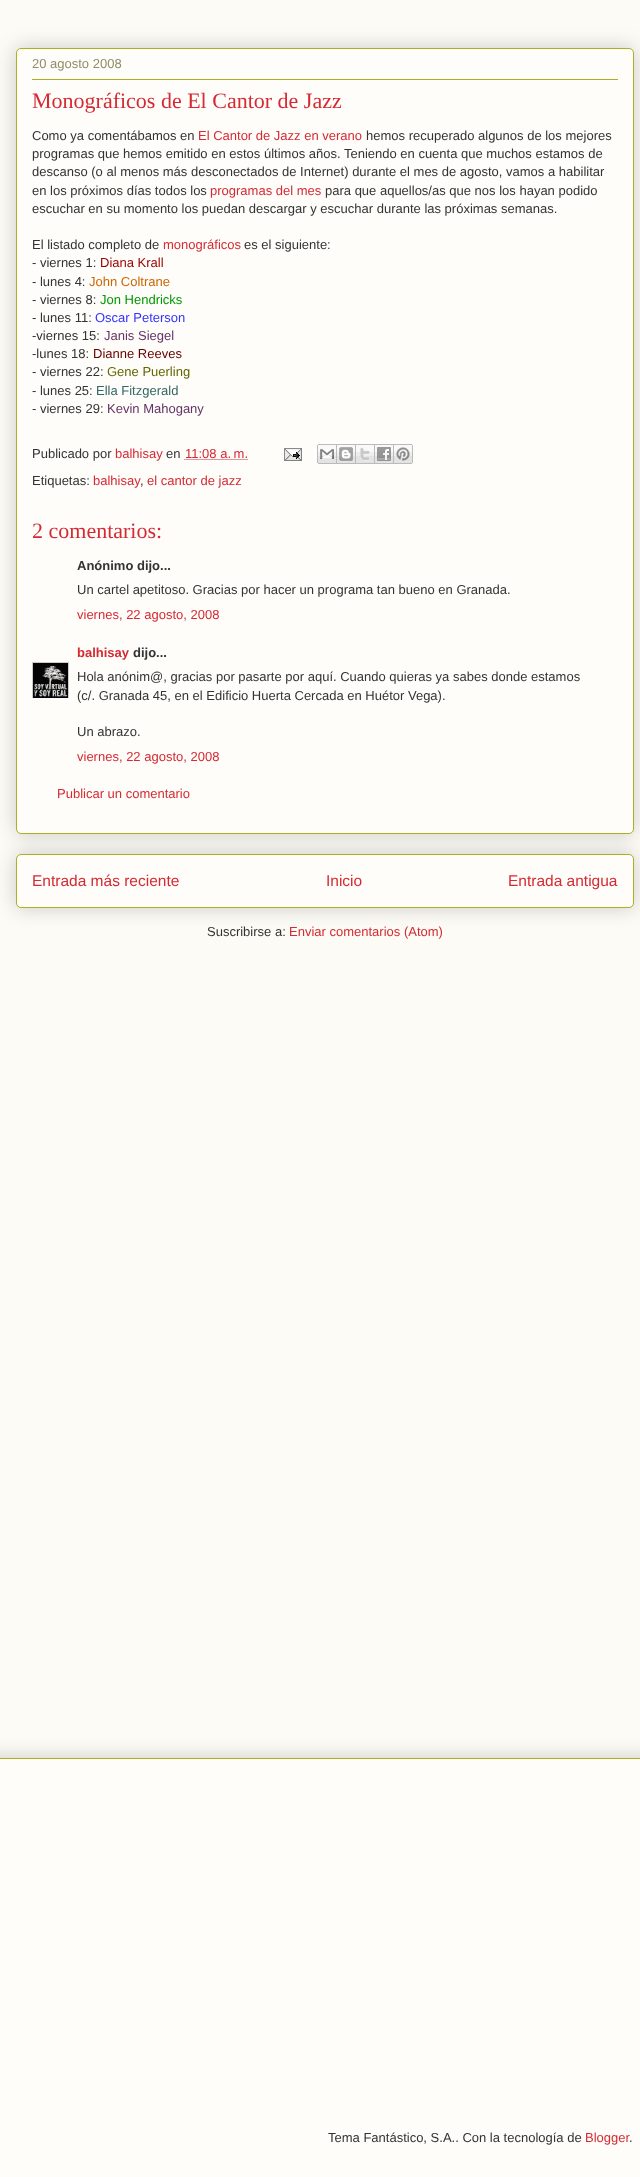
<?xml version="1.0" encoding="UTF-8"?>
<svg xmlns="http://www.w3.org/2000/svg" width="640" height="2177">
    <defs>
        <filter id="blur1" x="-50%" y="-200%" width="200%" height="500%"><feGaussianBlur stdDeviation="10"/></filter>
        <clipPath id="clip1"><rect x="32" y="662" width="37" height="36"/></clipPath>
    </defs>
    <rect width="100%" height="100%" fill="#FCFBF5"/>
    <rect x="16" y="854" width="618" height="54" rx="5" fill="#000000" fill-opacity="0.2" filter="url(#blur1)"/>
    <rect x="16.5" y="854.5" width="617" height="53" rx="4.5" fill="#FEFDFA" stroke="#AAB123"/>
    <rect x="16" y="48" width="618" height="786" rx="5" fill="#000000" fill-opacity="0.2" filter="url(#blur1)"/>
    <rect x="16.5" y="48.5" width="617" height="785" rx="4.5" fill="#FEFDFA" stroke="#AAB123"/>
    <text x="32" y="68" font-family="Liberation Sans" font-size="13" fill="#908D6A">20 agosto 2008</text>
    <rect x="32" y="79" width="586" height="1" fill="#AAB123"/>
    <text x="32" y="108" font-family="Liberation Serif" font-size="22" fill="#D52A33">Monográficos de El Cantor de Jazz</text>
    <text x="32" y="140" font-family="Liberation Sans" font-size="13" fill="#333333">Como ya comentábamos en</text>
    <text x="198" y="140" font-family="Liberation Sans" font-size="13" fill="#D52A33">El Cantor de Jazz en verano</text>
    <text x="366" y="140" font-family="Liberation Sans" font-size="13" fill="#333333">hemos recuperado algunos de los mejores</text>
    <text font-family="Liberation Sans" font-size="13" fill="#333333">
        <tspan x="32" y="158">programas que hemos emitido en estos últimos años. Teniendo en cuenta que muchos estamos de</tspan>
        <tspan x="32" y="176">descanso (o al menos más desconectados de Internet) durante el mes de agosto, vamos a habilitar</tspan>
        <tspan x="32" y="195">en los próximos días todos los</tspan>
    </text>
    <text x="210" y="195" font-family="Liberation Sans" font-size="13" fill="#D52A33">programas del mes</text>
    <text x="325" y="195" font-family="Liberation Sans" font-size="13" fill="#333333">para que aquellos/as que nos los hayan podido</text>
    <text x="32" y="213" font-family="Liberation Sans" font-size="13" fill="#333333">escuchar en su momento los puedan descargar y escuchar durante las próximas semanas.</text>
    <text x="32" y="249" font-family="Liberation Sans" font-size="13" fill="#333333">El listado completo de</text>
    <text x="163" y="249" font-family="Liberation Sans" font-size="13" fill="#D52A33">monográficos</text>
    <text x="244" y="249" font-family="Liberation Sans" font-size="13" fill="#333333">es el siguiente:</text>
    <text x="32" y="267" font-family="Liberation Sans" font-size="13" fill="#333333">- viernes 1:</text>
    <text x="100" y="267" font-family="Liberation Sans" font-size="13" fill="#990000">Diana Krall</text>
    <text x="32" y="286" font-family="Liberation Sans" font-size="13" fill="#333333">- lunes 4:</text>
    <text x="89" y="286" font-family="Liberation Sans" font-size="13" fill="#CC6600">John Coltrane</text>
    <text x="32" y="304" font-family="Liberation Sans" font-size="13" fill="#333333">- viernes 8:</text>
    <text x="100" y="304" font-family="Liberation Sans" font-size="13" fill="#009900">Jon Hendricks</text>
    <text x="32" y="322" font-family="Liberation Sans" font-size="13" fill="#333333">- lunes 11:</text>
    <text x="95" y="322" font-family="Liberation Sans" font-size="13" fill="#3333FF">Oscar Peterson</text>
    <text x="32" y="340" font-family="Liberation Sans" font-size="13" fill="#333333">-viernes 15:</text>
    <text x="104" y="340" font-family="Liberation Sans" font-size="13" fill="#663366">Janis Siegel</text>
    <text x="32" y="358" font-family="Liberation Sans" font-size="13" fill="#333333">-lunes 18:</text>
    <text x="93" y="358" font-family="Liberation Sans" font-size="13" fill="#660000">Dianne Reeves</text>
    <text x="32" y="376" font-family="Liberation Sans" font-size="13" fill="#333333">- viernes 22:</text>
    <text x="107" y="376" font-family="Liberation Sans" font-size="13" fill="#666600">Gene Puerling</text>
    <text x="32" y="395" font-family="Liberation Sans" font-size="13" fill="#333333">- lunes 25:</text>
    <text x="96" y="395" font-family="Liberation Sans" font-size="13" fill="#336666">Ella Fitzgerald</text>
    <text x="32" y="413" font-family="Liberation Sans" font-size="13" fill="#333333">- viernes 29:</text>
    <text x="107" y="413" font-family="Liberation Sans" font-size="13" fill="#663366">Kevin Mahogany</text>
    <text x="32" y="458" font-family="Liberation Sans" font-size="13" fill="#333333">Publicado por</text>
    <text x="115" y="458" font-family="Liberation Sans" font-size="13" fill="#D52A33">balhisay</text>
    <text x="166" y="458" font-family="Liberation Sans" font-size="13" fill="#333333">en</text>
    <path d="M 184.5 459.5 H 247.5" fill="none" stroke="#D52A33" stroke-dasharray="1 1"/>
    <text x="185" y="458" font-family="Liberation Sans" font-size="13" fill="#D52A33">11:08 a. m.</text>
    <image x="284" y="448" width="18" height="13" href="img_01.png"/>
    <image x="317" y="444" width="20" height="20" href="img_02.png"/>
    <image x="337" y="444" width="19" height="20" href="img_03.png"/>
    <image x="356" y="444" width="19" height="20" href="img_04.png"/>
    <image x="375" y="444" width="19" height="20" href="img_05.png"/>
    <image x="394" y="444" width="19" height="20" href="img_06.png"/>
    <text x="32" y="485" font-family="Liberation Sans" font-size="13" fill="#333333">Etiquetas:</text>
    <text x="93" y="485" font-family="Liberation Sans" font-size="13" fill="#D52A33">balhisay</text>
    <text x="147" y="485" font-family="Liberation Sans" font-size="13" fill="#D52A33">el cantor de jazz</text>
    <text x="140" y="485" font-family="Liberation Sans" font-size="13" fill="#333333">,</text>
    <text x="32" y="538" font-family="Liberation Serif" font-size="22" fill="#D52A33">2 comentarios:</text>
    <text x="77" y="570" font-family="Liberation Sans" font-size="13" font-weight="700" fill="#333333">Anónimo dijo...</text>
    <text x="77" y="594" font-family="Liberation Sans" font-size="13" fill="#333333">Un cartel apetitoso. Gracias por hacer un programa tan bueno en Granada.</text>
    <text x="77" y="619" font-family="Liberation Sans" font-size="13" fill="#D52A33">viernes, 22 agosto, 2008</text>
    <text x="77" y="657" font-family="Liberation Sans" font-size="13" font-weight="700" fill="#D52A33">balhisay</text>
    <text x="133" y="657" font-family="Liberation Sans" font-size="13" font-weight="700" fill="#333333">dijo...</text>
    <g clip-path="url(#clip1)">
        <rect x="32.5" y="662.5" width="36" height="36" fill="none" stroke="#CCCCCC"/>
    </g>
    <image x="33" y="663" width="35" height="35" href="img_07.png"/>
    <text font-family="Liberation Sans" font-size="13" fill="#333333">
        <tspan x="77" y="681">Hola anónim@, gracias por pasarte por aquí. Cuando quieras ya sabes donde estamos</tspan>
        <tspan x="77" y="700">(c/. Granada 45, en el Edificio Huerta Cercada en Huétor Vega).</tspan>
    </text>
    <text x="77" y="736" font-family="Liberation Sans" font-size="13" fill="#333333">Un abrazo.</text>
    <text x="77" y="761" font-family="Liberation Sans" font-size="13" fill="#D52A33">viernes, 22 agosto, 2008</text>
    <text x="57" y="798" font-family="Liberation Sans" font-size="13" fill="#D52A33">Publicar un comentario</text>
    <text x="32" y="886" font-family="Liberation Sans" font-size="15.5" fill="#D52A33">Entrada más reciente</text>
    <text x="326" y="886" font-family="Liberation Sans" font-size="15.5" fill="#D52A33">Inicio</text>
    <text x="508" y="886" font-family="Liberation Sans" font-size="15.5" fill="#D52A33">Entrada antigua</text>
    <text x="207" y="936" font-family="Liberation Sans" font-size="13" fill="#333333">Suscribirse a:</text>
    <text x="289" y="936" font-family="Liberation Sans" font-size="13" fill="#D52A33">Enviar comentarios (Atom)</text>
    <rect x="-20" y="1758" width="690" height="419" fill="#000000" fill-opacity="0.2" filter="url(#blur1)"/>
    <rect x="0" y="1759" width="640" height="418" fill="#FEFDFA"/>
    <rect x="0" y="1758" width="640" height="1" fill="#AAB123"/>
    <text x="328" y="2142" font-family="Liberation Sans" font-size="13" fill="#333333">Tema Fantástico, S.A.. Con la tecnología de</text>
    <text x="585" y="2142" font-family="Liberation Sans" font-size="13" fill="#D52A33">Blogger</text>
    <text x="629" y="2142" font-family="Liberation Sans" font-size="13" fill="#333333">.</text>
</svg>
